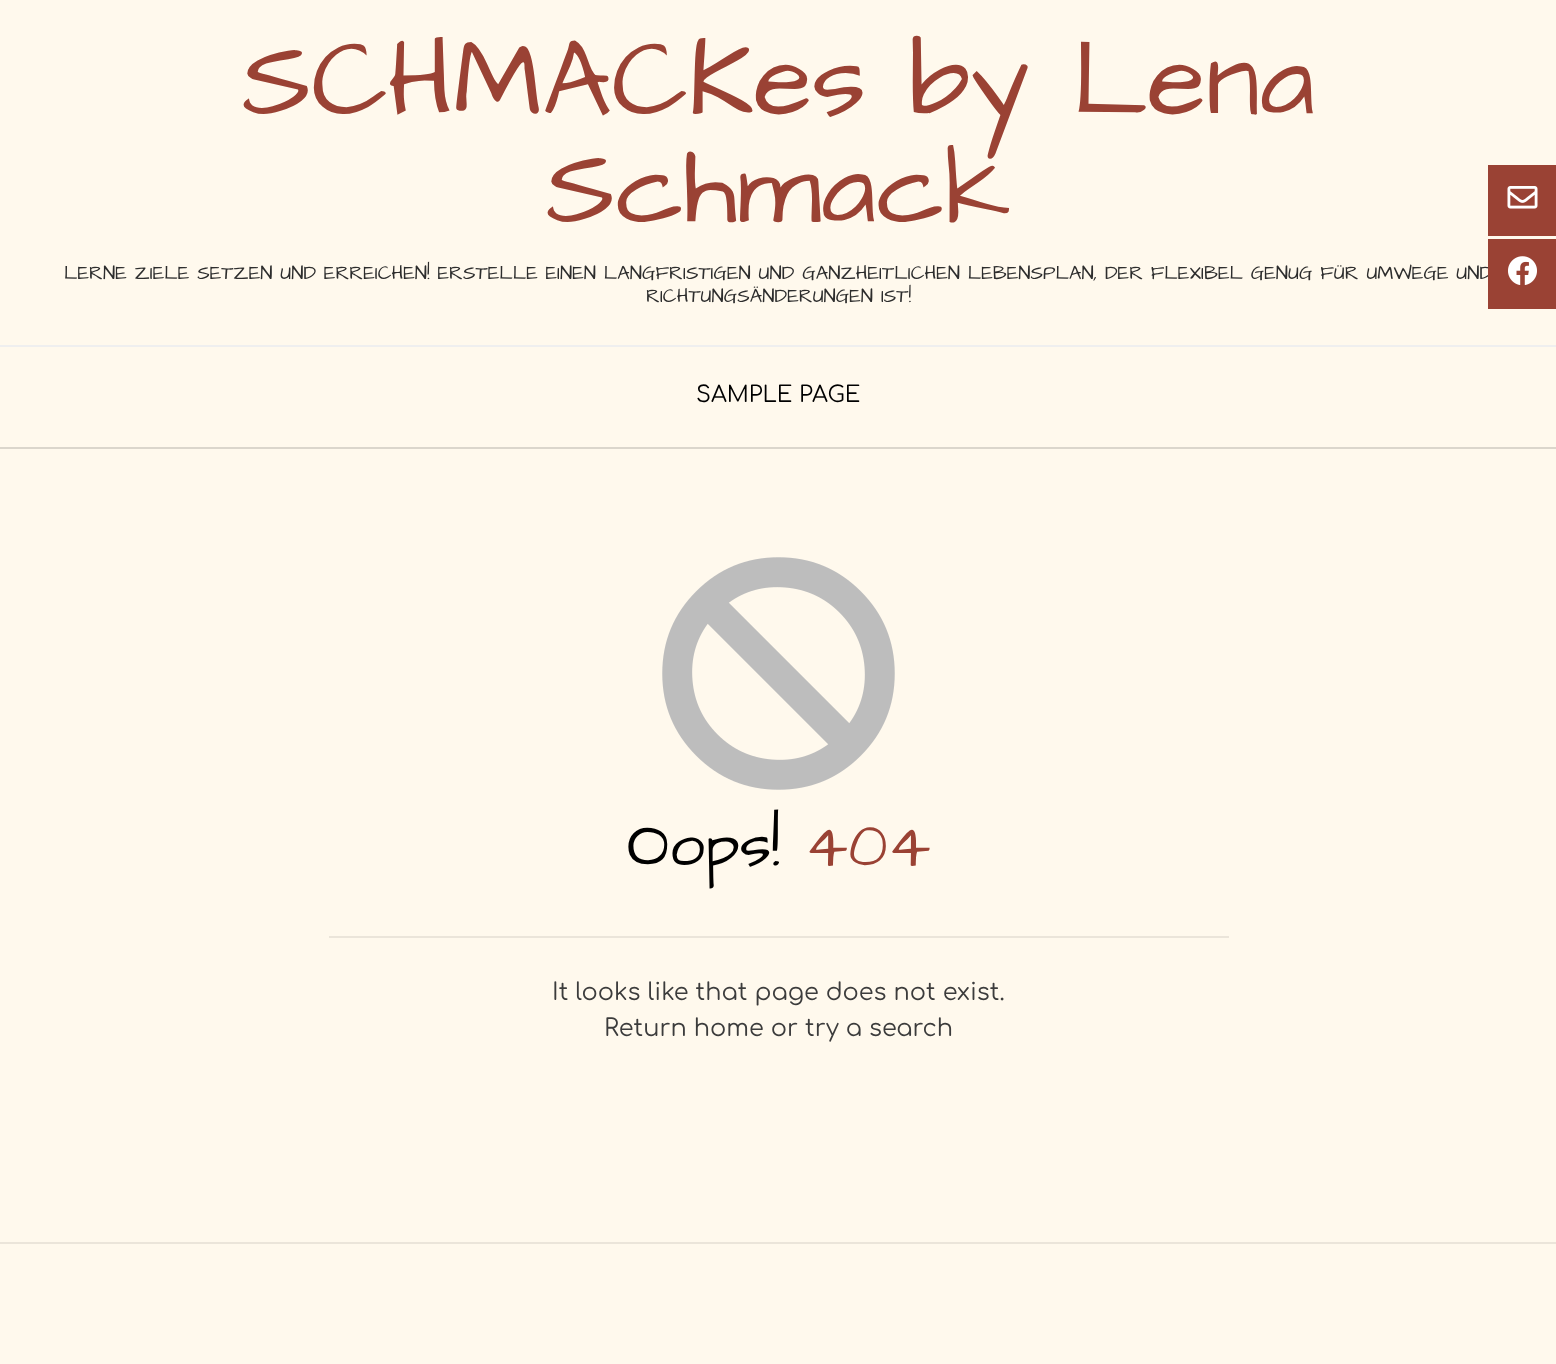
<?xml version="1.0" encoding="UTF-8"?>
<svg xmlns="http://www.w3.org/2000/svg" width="1556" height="1364">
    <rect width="100%" height="100%" fill="#FFF9ED"/>
    <rect x="0" y="447" width="1556" height="2" fill="#DBD6CC"/>
    <text x="242" y="114" font-family="Architects Daughter" font-size="108" fill="#9A4234">SCHMACKes by Lena</text>
    <text x="546" y="222" font-family="Architects Daughter" font-size="108" fill="#9A4234">Schmack</text>
    <text x="64" y="279" font-family="Architects Daughter" font-size="19.5" fill="#2D2D2D">LERNE ZIELE SETZEN UND ERREICHEN! ERSTELLE EINEN LANGFRISTIGEN UND GANZHEITLICHEN LEBENSPLAN, DER FLEXIBEL GENUG FÜR UMWEGE UND</text>
    <text x="646" y="302" font-family="Architects Daughter" font-size="19.5" fill="#2D2D2D">RICHTUNGSÄNDERUNGEN IST!</text>
    <rect x="0" y="345" width="1556" height="2" fill="#EFEFEF"/>
    <text x="696" y="402" font-family="Comfortaa" font-size="22.5" fill="#000000">SAMPLE PAGE</text>
    <image x="662" y="557" width="233" height="233" href="img_01.png"/>
    <rect x="329" y="936" width="900" height="2" fill="#EBE5DA"/>
    <text x="627" y="865" font-family="Architects Daughter" font-size="63" fill="#000000">Oops!</text>
    <text x="805" y="865" font-family="Architects Daughter" font-size="63" fill="#9A4234">404</text>
    <text x="552" y="1000" font-family="Comfortaa" font-size="24" fill="#3C3C3C">It looks like that page does not exist.</text>
    <text x="604" y="1036" font-family="Comfortaa" font-size="24" fill="#3C3C3C">Return home or try a search</text>
    <rect x="0" y="1242" width="1556" height="2" fill="#EBE5DA"/>
    <rect x="1488" y="165" width="68" height="71" fill="#9A4234"/>
    <image x="1507" y="186" width="31" height="23" href="img_02.png"/>
    <rect x="1488" y="239" width="68" height="70" fill="#9A4234"/>
    <image x="1508" y="256" width="29" height="29" href="img_03.png"/>
</svg>
